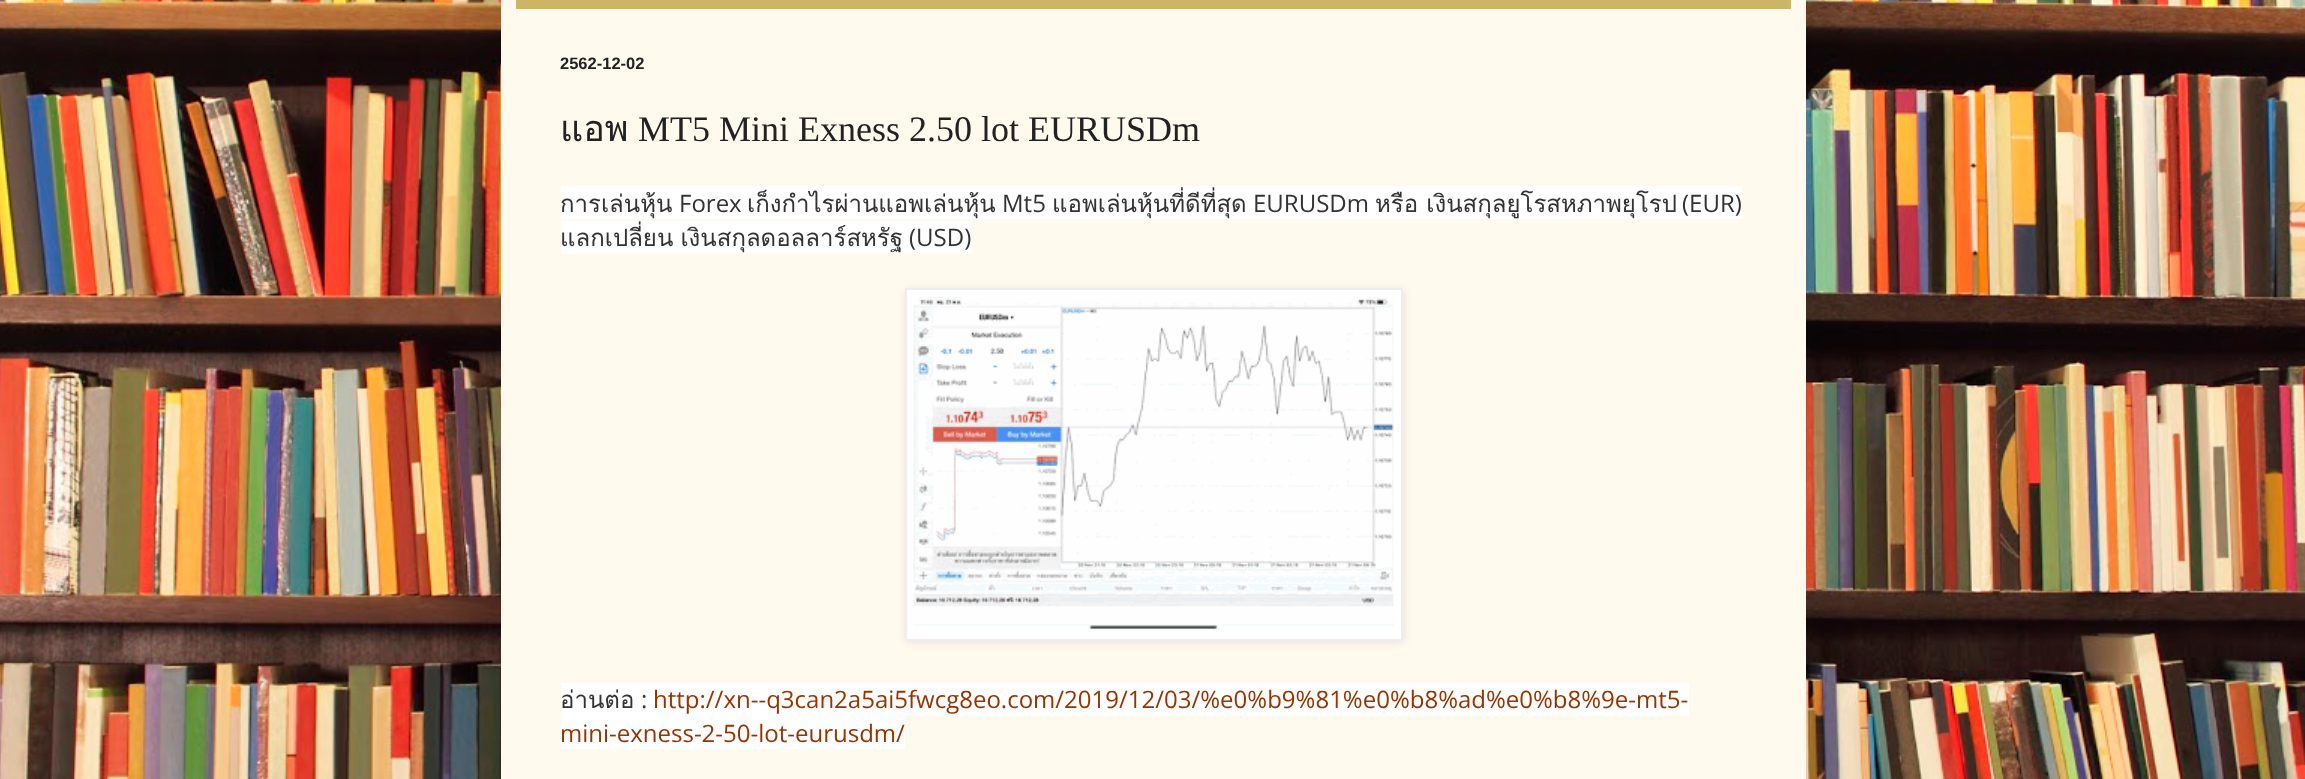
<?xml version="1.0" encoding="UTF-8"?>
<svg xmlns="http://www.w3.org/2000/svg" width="2305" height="779">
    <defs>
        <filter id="blur1" x="-50%" y="-200%" width="200%" height="500%"><feGaussianBlur stdDeviation="30"/></filter>
        <filter id="blur2" x="-50%" y="-200%" width="200%" height="500%"><feGaussianBlur stdDeviation="4"/></filter>
    </defs>
    <rect width="100%" height="100%" fill="#FFFFFF"/>
    <image x="0" y="0" width="2305" height="779" href="img_01.png"/>
    <rect x="501" y="-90" width="1305" height="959" fill="#000000" fill-opacity="0.15" filter="url(#blur1)"/>
    <rect x="501" y="0" width="1305" height="779" fill="#FFF9EE"/>
    <rect x="516" y="0" width="1275" height="9" fill="#CCB666"/>
    <text x="560" y="69" font-family="Liberation Sans" font-size="16.5" font-weight="700" fill="#222222">2562-12-02</text>
    <text x="560" y="141" font-family="Loma" font-size="36" fill="#222222">แอพ</text>
    <text x="638" y="141" font-family="Liberation Serif" font-size="36" fill="#222222">MT5 Mini Exness 2.50 lot EURUSDm</text>
    <rect x="561" y="186" width="1181" height="33" fill="#FFFFFF"/>
    <text x="560" y="212" font-family="Loma" font-size="24" fill="#333333">การเล่นหุ้น</text>
    <text x="679" y="212" font-family="Open Sans" font-size="24" fill="#333333">Forex</text>
    <text x="747" y="212" font-family="Loma" font-size="24" fill="#333333">เก็งกำไรผ่านแอพเล่นหุ้น</text>
    <text x="1002" y="212" font-family="Open Sans" font-size="24" fill="#333333">Mt5</text>
    <text x="1052" y="212" font-family="Loma" font-size="24" fill="#333333">แอพเล่นหุ้นที่ดีที่สุด</text>
    <text x="1253" y="212" font-family="Open Sans" font-size="24" fill="#333333">EURUSDm</text>
    <text x="1375" y="212" font-family="Loma" font-size="24" fill="#333333">หรือ เงินสกุลยูโรสหภาพยุโรป</text>
    <text x="1682" y="212" font-family="Open Sans" font-size="24" fill="#333333">(EUR)</text>
    <rect x="561" y="221" width="410" height="33" fill="#FFFFFF"/>
    <text x="560" y="246" word-spacing="-1" font-family="Loma" font-size="24" fill="#333333">แลกเปลี่ยน เงินสกุลดอลลาร์สหรัฐ</text>
    <text x="909" y="246" font-family="Open Sans" font-size="24" fill="#333333">(USD)</text>
    <rect x="906" y="290" width="498" height="352" fill="#000000" fill-opacity="0.1" filter="url(#blur2)"/>
    <rect x="906" y="289" width="496" height="351" fill="#FFFFFF" stroke="#EEEEEE" stroke-width="2"/>
    <image x="913" y="297" width="481" height="335" href="img_02.png"/>
    <rect x="561" y="683" width="1128" height="33" fill="#FFFFFF"/>
    <text x="560" y="708" font-family="Loma" font-size="24" fill="#333333">อ่านต่อ</text>
    <text x="641" y="708" font-family="Open Sans" font-size="24" fill="#333333">:</text>
    <text x="653" y="708" font-family="Open Sans" font-size="24" fill="#993300">http://xn--q3can2a5ai5fwcg8eo.com/2019/12/03/%e0%b9%81%e0%b8%ad%e0%b8%9e-mt5-</text>
    <rect x="561" y="716" width="344" height="33" fill="#FFFFFF"/>
    <text x="560" y="742" font-family="Open Sans" font-size="24" fill="#993300">mini-exness-2-50-lot-eurusdm/</text>
</svg>
